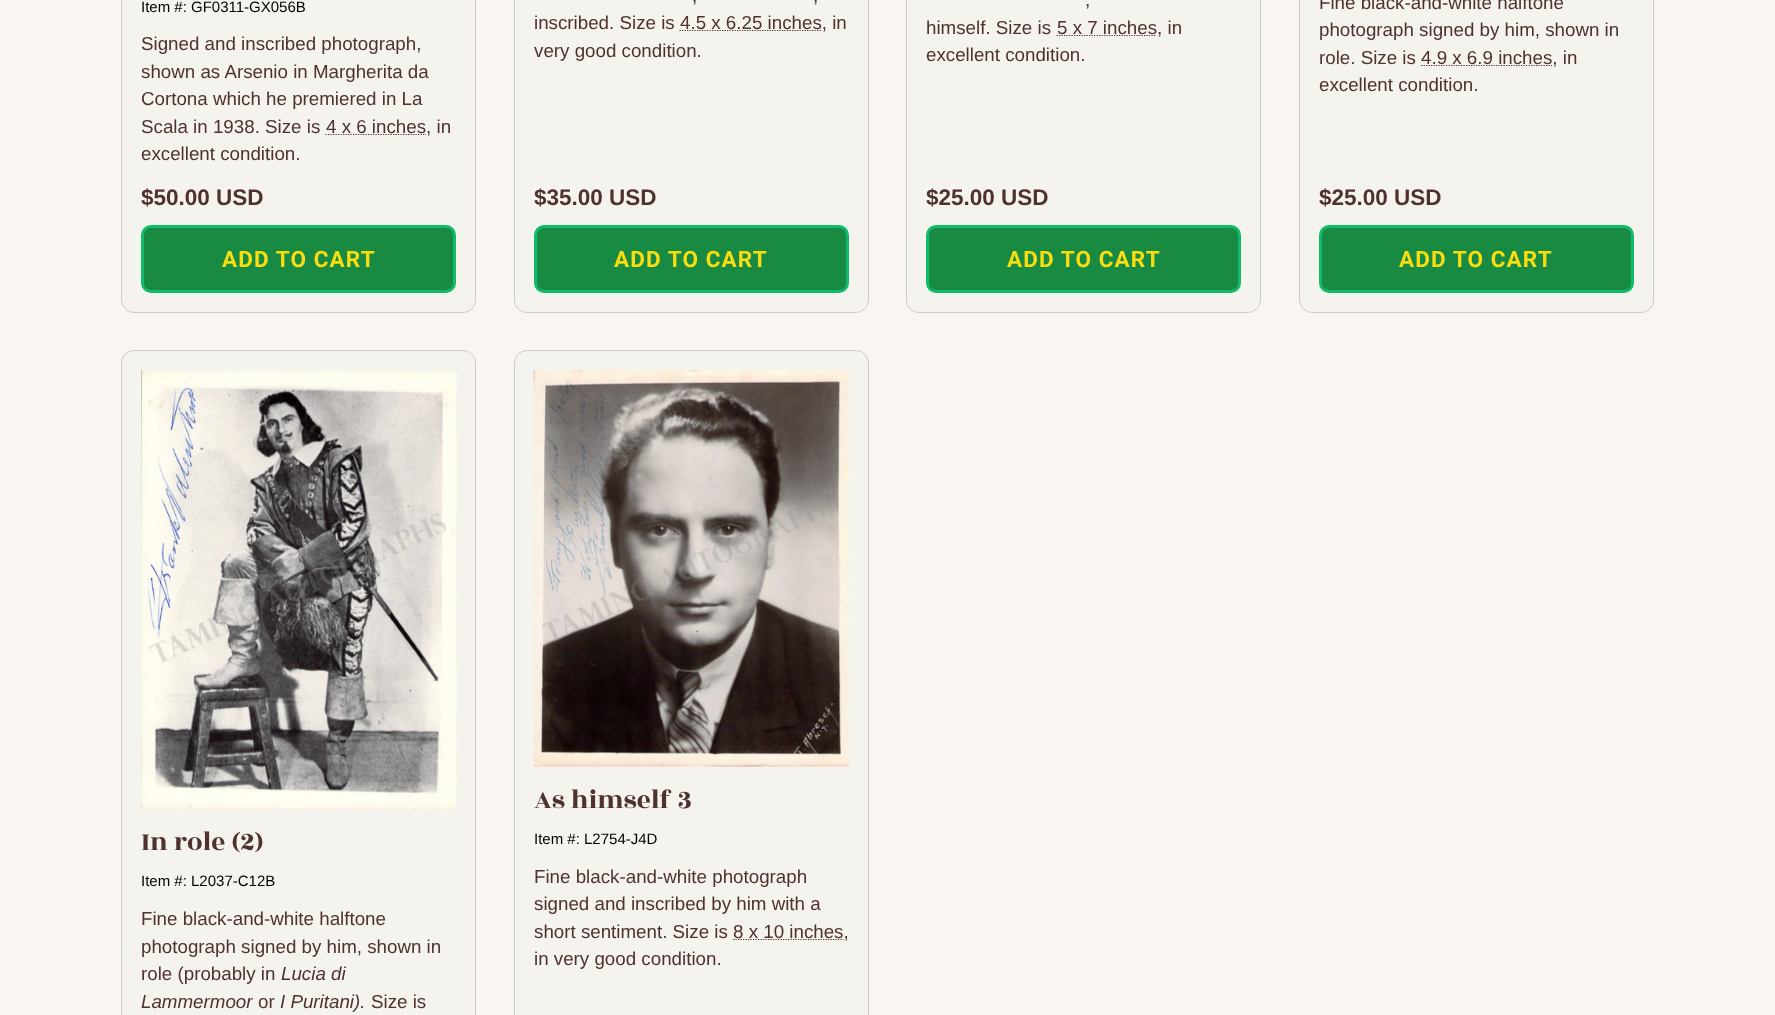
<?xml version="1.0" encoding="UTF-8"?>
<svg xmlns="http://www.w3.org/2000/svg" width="1775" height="1015">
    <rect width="100%" height="100%" fill="#FBF5F1"/>
    <rect x="121.5" y="-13.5" width="354" height="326" rx="12.5" fill="#F5F3ED" stroke="#CCCCCC"/>
    <text x="141" y="12" font-family="Liberation Sans" font-size="15" fill="#000000">Item #: GF0311-GX056B</text>
    <text font-family="Liberation Sans" font-size="18.75" fill="#4F3230">
        <tspan x="141" y="50">Signed and inscribed photograph,</tspan>
        <tspan x="141" y="78">shown as Arsenio in Margherita da</tspan>
        <tspan x="141" y="105">Cortona which he premiered in La</tspan>
        <tspan x="141" y="133">Scala in 1938. Size is</tspan>
    </text>
    <path d="M 325.5 134.5 H 426" fill="none" stroke="#4F3230" stroke-width="1.2" stroke-dasharray="1.25 1.25"/>
    <text x="326" y="133" font-family="Liberation Sans" font-size="18.75" fill="#4F3230">4 x 6 inches, in</text>
    <text x="141" y="160" font-family="Liberation Sans" font-size="18.75" fill="#4F3230">excellent condition.</text>
    <text x="141" y="205" font-family="Liberation Sans" font-size="22.5" font-weight="700" fill="#4F3230">$50.00 USD</text>
    <rect x="142.5" y="226.5" width="312" height="65" rx="8.5" fill="#188A42" stroke="#11BB6C" stroke-width="3"/>
    <text x="222" y="267" font-family="Roboto" font-size="22.5" font-weight="700" letter-spacing="1.1" fill="#F9DD10">ADD TO CART</text>
    <rect x="514.5" y="-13.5" width="354" height="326" rx="12.5" fill="#F5F3ED" stroke="#CCCCCC"/>
    <text x="692" y="2" font-family="Liberation Sans" font-size="18.75" fill="#4F3230">,</text>
    <text x="813" y="2" font-family="Liberation Sans" font-size="18.75" fill="#4F3230">,</text>
    <text x="534" y="29" font-family="Liberation Sans" font-size="18.75" fill="#4F3230">inscribed. Size is</text>
    <path d="M 679.5 30.5 H 821.5" fill="none" stroke="#4F3230" stroke-width="1.2" stroke-dasharray="1.25 1.25"/>
    <text x="680" y="29" font-family="Liberation Sans" font-size="18.75" fill="#4F3230">4.5 x 6.25 inches, in</text>
    <text x="534" y="57" font-family="Liberation Sans" font-size="18.75" fill="#4F3230">very good condition.</text>
    <text x="534" y="205" font-family="Liberation Sans" font-size="22.5" font-weight="700" fill="#4F3230">$35.00 USD</text>
    <rect x="535.5" y="226.5" width="312" height="65" rx="8.5" fill="#188A42" stroke="#11BB6C" stroke-width="3"/>
    <text x="614" y="267" font-family="Roboto" font-size="22.5" font-weight="700" letter-spacing="1.1" fill="#F9DD10">ADD TO CART</text>
    <rect x="906.5" y="-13.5" width="354" height="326" rx="12.5" fill="#F5F3ED" stroke="#CCCCCC"/>
    <text x="1085" y="6" font-family="Liberation Sans" font-size="18.75" fill="#4F3230">,</text>
    <text x="926" y="34" font-family="Liberation Sans" font-size="18.75" fill="#4F3230">himself. Size is</text>
    <path d="M 1056.5 35.5 H 1156.5" fill="none" stroke="#4F3230" stroke-width="1.2" stroke-dasharray="1.25 1.25"/>
    <text x="1057" y="34" font-family="Liberation Sans" font-size="18.75" fill="#4F3230">5 x 7 inches, in</text>
    <text x="926" y="61" font-family="Liberation Sans" font-size="18.75" fill="#4F3230">excellent condition.</text>
    <text x="926" y="205" font-family="Liberation Sans" font-size="22.5" font-weight="700" fill="#4F3230">$25.00 USD</text>
    <rect x="927.5" y="226.5" width="312" height="65" rx="8.5" fill="#188A42" stroke="#11BB6C" stroke-width="3"/>
    <text x="1007" y="267" font-family="Roboto" font-size="22.5" font-weight="700" letter-spacing="1.1" fill="#F9DD10">ADD TO CART</text>
    <rect x="1299.5" y="-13.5" width="354" height="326" rx="12.5" fill="#F5F3ED" stroke="#CCCCCC"/>
    <text font-family="Liberation Sans" font-size="18.75" fill="#4F3230">
        <tspan x="1319" y="9">Fine black-and-white halftone</tspan>
        <tspan x="1319" y="36">photograph signed by him, shown in</tspan>
        <tspan x="1319" y="64">role. Size is</tspan>
    </text>
    <path d="M 1421 65.5 H 1552" fill="none" stroke="#4F3230" stroke-width="1.2" stroke-dasharray="1.25 1.25"/>
    <text x="1421" y="64" font-family="Liberation Sans" font-size="18.75" fill="#4F3230">4.9 x 6.9 inches, in</text>
    <text x="1319" y="91" font-family="Liberation Sans" font-size="18.75" fill="#4F3230">excellent condition.</text>
    <text x="1319" y="205" font-family="Liberation Sans" font-size="22.5" font-weight="700" fill="#4F3230">$25.00 USD</text>
    <rect x="1320.5" y="226.5" width="312" height="65" rx="8.5" fill="#188A42" stroke="#11BB6C" stroke-width="3"/>
    <text x="1399" y="267" font-family="Roboto" font-size="22.5" font-weight="700" letter-spacing="1.1" fill="#F9DD10">ADD TO CART</text>
    <rect x="121.5" y="350.5" width="354" height="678" rx="12.5" fill="#F5F3ED" stroke="#CCCCCC"/>
    <image x="141" y="370" width="316" height="440" href="img_01.png"/>
    <text x="141" y="850" font-family="Rozha One" font-size="27.5" fill="#4F3230">In role (2)</text>
    <text x="141" y="886" font-family="Liberation Sans" font-size="15" fill="#000000">Item #: L2037-C12B</text>
    <text font-family="Liberation Sans" font-size="18.75" fill="#4F3230">
        <tspan x="141" y="925">Fine black-and-white halftone</tspan>
        <tspan x="141" y="953">photograph signed by him, shown in</tspan>
        <tspan x="141" y="980">role (probably in</tspan>
    </text>
    <text x="281" y="980" font-family="Liberation Sans" font-size="18.75" font-style="italic" fill="#4F3230">Lucia di</text>
    <text x="141" y="1008" font-family="Liberation Sans" font-size="18.75" font-style="italic" fill="#4F3230">Lammermoor</text>
    <text x="258" y="1008" font-family="Liberation Sans" font-size="18.75" fill="#4F3230">or</text>
    <text x="280" y="1008" font-family="Liberation Sans" font-size="18.75" font-style="italic" fill="#4F3230">I Puritani).</text>
    <text x="371" y="1008" font-family="Liberation Sans" font-size="18.75" fill="#4F3230">Size is</text>
    <rect x="514.5" y="350.5" width="354" height="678" rx="12.5" fill="#F5F3ED" stroke="#CCCCCC"/>
    <image x="533" y="369" width="316" height="398" href="img_02.png"/>
    <text x="534" y="808" font-family="Rozha One" font-size="27.5" fill="#4F3230">As himself 3</text>
    <text x="534" y="844" font-family="Liberation Sans" font-size="15" fill="#000000">Item #: L2754-J4D</text>
    <text font-family="Liberation Sans" font-size="18.75" fill="#4F3230">
        <tspan x="534" y="883">Fine black-and-white photograph</tspan>
        <tspan x="534" y="910">signed and inscribed by him with a</tspan>
        <tspan x="534" y="938">short sentiment. Size is</tspan>
    </text>
    <path d="M 733 939.5 H 843.5" fill="none" stroke="#4F3230" stroke-width="1.2" stroke-dasharray="1.25 1.25"/>
    <text x="733" y="938" font-family="Liberation Sans" font-size="18.75" fill="#4F3230">8 x 10 inches,</text>
    <text x="534" y="965" font-family="Liberation Sans" font-size="18.75" fill="#4F3230">in very good condition.</text>
</svg>
